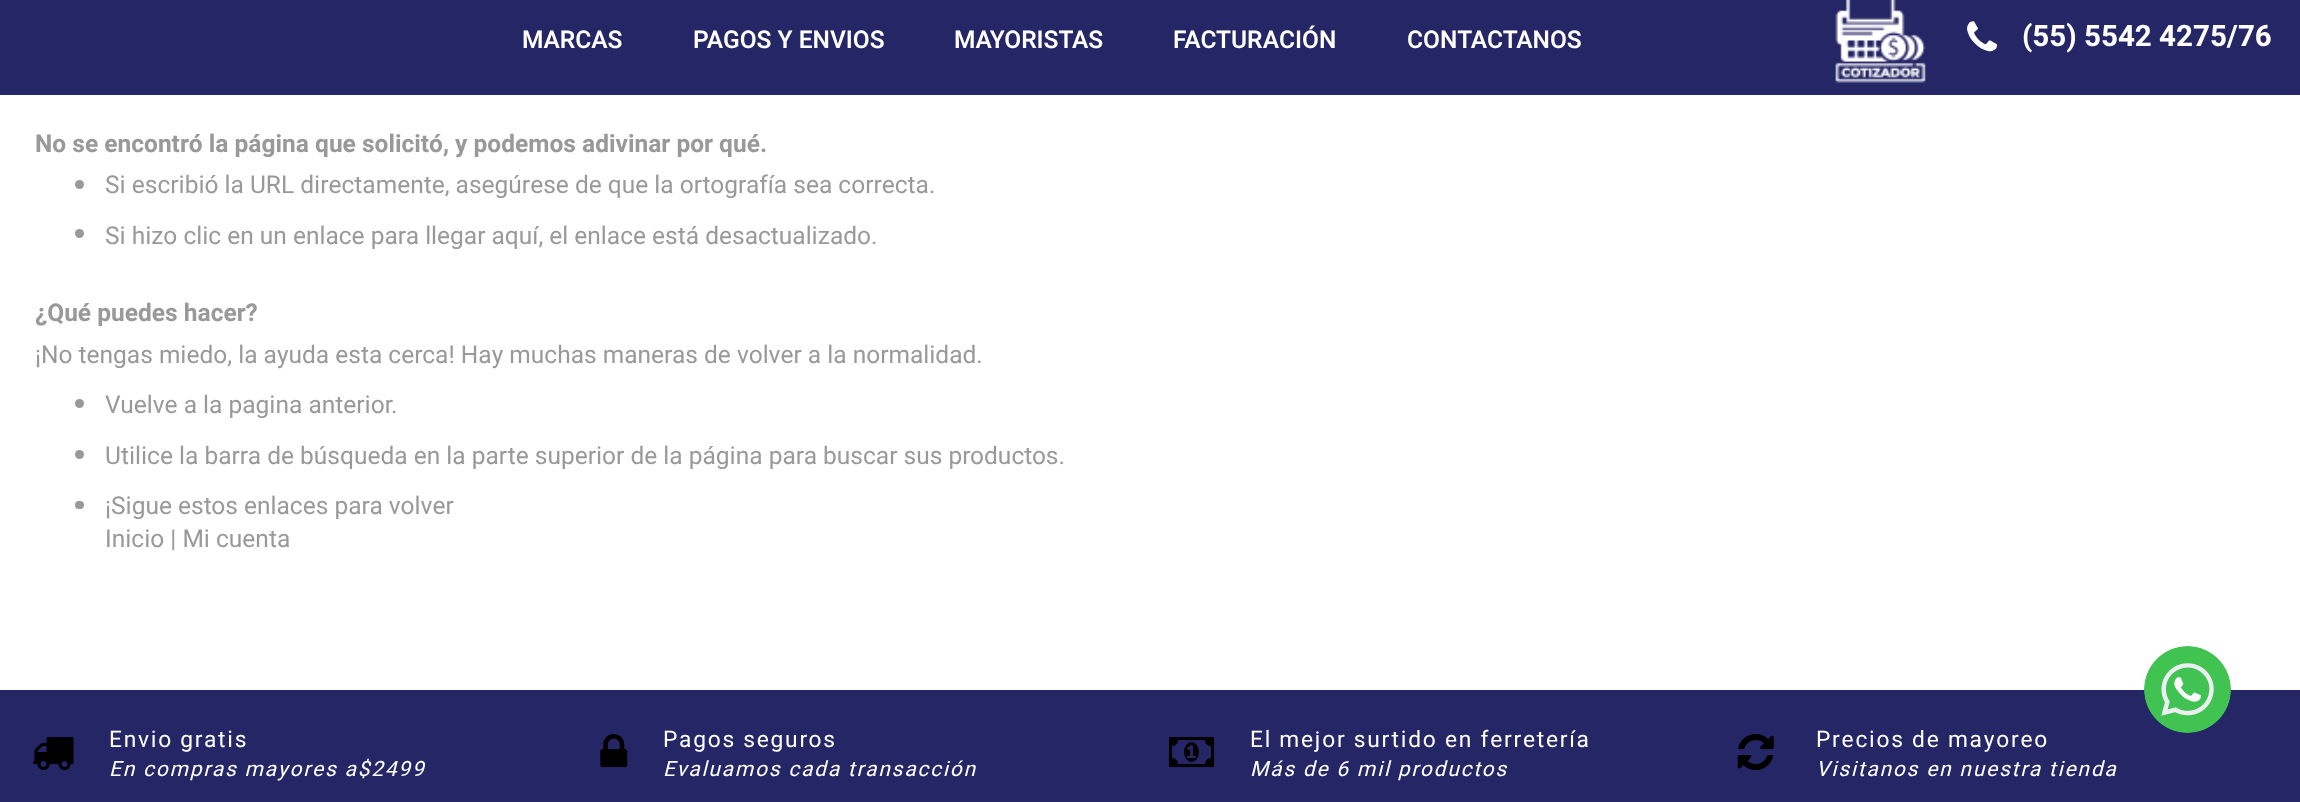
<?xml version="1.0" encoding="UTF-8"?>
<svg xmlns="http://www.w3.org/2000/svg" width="2300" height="802">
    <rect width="100%" height="100%" fill="#FFFFFF"/>
    <rect x="0" y="0" width="2300" height="95" fill="#252666"/>
    <text x="522" y="48" font-family="Heebo" font-size="24.5" font-weight="600" fill="#FFFFFF">MARCAS</text>
    <text x="693" y="48" font-family="Heebo" font-size="24.5" font-weight="600" fill="#FFFFFF">PAGOS Y ENVIOS</text>
    <text x="954" y="48" font-family="Heebo" font-size="24.5" font-weight="600" fill="#FFFFFF">MAYORISTAS</text>
    <text x="1173" y="48" font-family="Heebo" font-size="24.5" font-weight="600" fill="#FFFFFF">FACTURACIÓN</text>
    <text x="1407" y="48" font-family="Heebo" font-size="24.5" font-weight="600" fill="#FFFFFF">CONTACTANOS</text>
    <image x="1835" y="0" width="91" height="83" href="img_01.png"/>
    <image x="1967" y="21" width="31" height="31" href="img_02.png"/>
    <text x="2022" y="46" font-family="Heebo" font-size="29.5" font-weight="700" fill="#FFFFFF">(55) 5542 4275/76</text>
    <text x="35" y="152" font-family="Heebo" font-size="24.5" font-weight="700" fill="#999999">No se encontró la página que solicitó, y podemos adivinar por qué.</text>
    <circle cx="79.5" cy="184.5" r="4.5" fill="#999999"/>
    <text x="105" y="193" font-family="Heebo" font-size="24.5" fill="#999999">Si escribió la URL directamente, asegúrese de que la ortografía sea correcta.</text>
    <circle cx="79.5" cy="233.5" r="4.5" fill="#999999"/>
    <text x="105" y="244" font-family="Heebo" font-size="24.5" fill="#999999">Si hizo clic en un enlace para llegar aquí, el enlace está desactualizado.</text>
    <text x="35" y="321" font-family="Heebo" font-size="24.5" font-weight="700" fill="#999999">¿Qué puedes hacer?</text>
    <text x="35" y="363" font-family="Heebo" font-size="24.5" fill="#999999">¡No tengas miedo, la ayuda esta cerca! Hay muchas maneras de volver a la normalidad.</text>
    <circle cx="79.5" cy="403.5" r="4.5" fill="#999999"/>
    <text x="105" y="413" font-family="Heebo" font-size="24.5" fill="#999999">Vuelve a la pagina anterior.</text>
    <circle cx="79.5" cy="454.5" r="4.5" fill="#999999"/>
    <text x="105" y="464" font-family="Heebo" font-size="24.5" fill="#999999">Utilice la barra de búsqueda en la parte superior de la página para buscar sus productos.</text>
    <rect x="75" y="501" width="9" height="8" rx="4" fill="#999999"/>
    <text font-family="Heebo" font-size="24.5" fill="#999999">
        <tspan x="105" y="514">¡Sigue estos enlaces para volver</tspan>
        <tspan x="105" y="547">Inicio | Mi cuenta</tspan>
    </text>
    <rect x="0" y="690" width="2300" height="112" fill="#252666"/>
    <image x="2144" y="646" width="87" height="87" href="img_03.png"/>
    <image x="33" y="737" width="41" height="34" href="img_04.png"/>
    <text x="109" y="747" font-family="Heebo" font-size="22.75" letter-spacing="1.75" fill="#FFFFFF">Envio gratis</text>
    <text x="109" y="776" font-family="Heebo" font-size="21" font-style="italic" letter-spacing="1.75" fill="#FFFFFF">En compras mayores a$2499</text>
    <image x="600" y="734" width="28" height="34" href="img_05.png"/>
    <text x="663" y="747" font-family="Heebo" font-size="22.75" letter-spacing="1.75" fill="#FFFFFF">Pagos seguros</text>
    <text x="663" y="776" font-family="Heebo" font-size="21" font-style="italic" letter-spacing="1.75" fill="#FFFFFF">Evaluamos cada transacción</text>
    <image x="1169" y="737" width="45" height="31" href="img_06.png"/>
    <text x="1250" y="747" font-family="Heebo" font-size="22.75" letter-spacing="1.75" fill="#FFFFFF">El mejor surtido en ferretería</text>
    <text x="1250" y="776" font-family="Heebo" font-size="21" font-style="italic" letter-spacing="1.75" fill="#FFFFFF">Más de 6 mil productos</text>
    <image x="1737" y="734" width="37" height="37" href="img_07.png"/>
    <text x="1816" y="747" font-family="Heebo" font-size="22.75" letter-spacing="1.75" fill="#FFFFFF">Precios de mayoreo</text>
    <text x="1816" y="776" font-family="Heebo" font-size="21" font-style="italic" letter-spacing="1.75" fill="#FFFFFF">Visitanos en nuestra tienda</text>
</svg>
